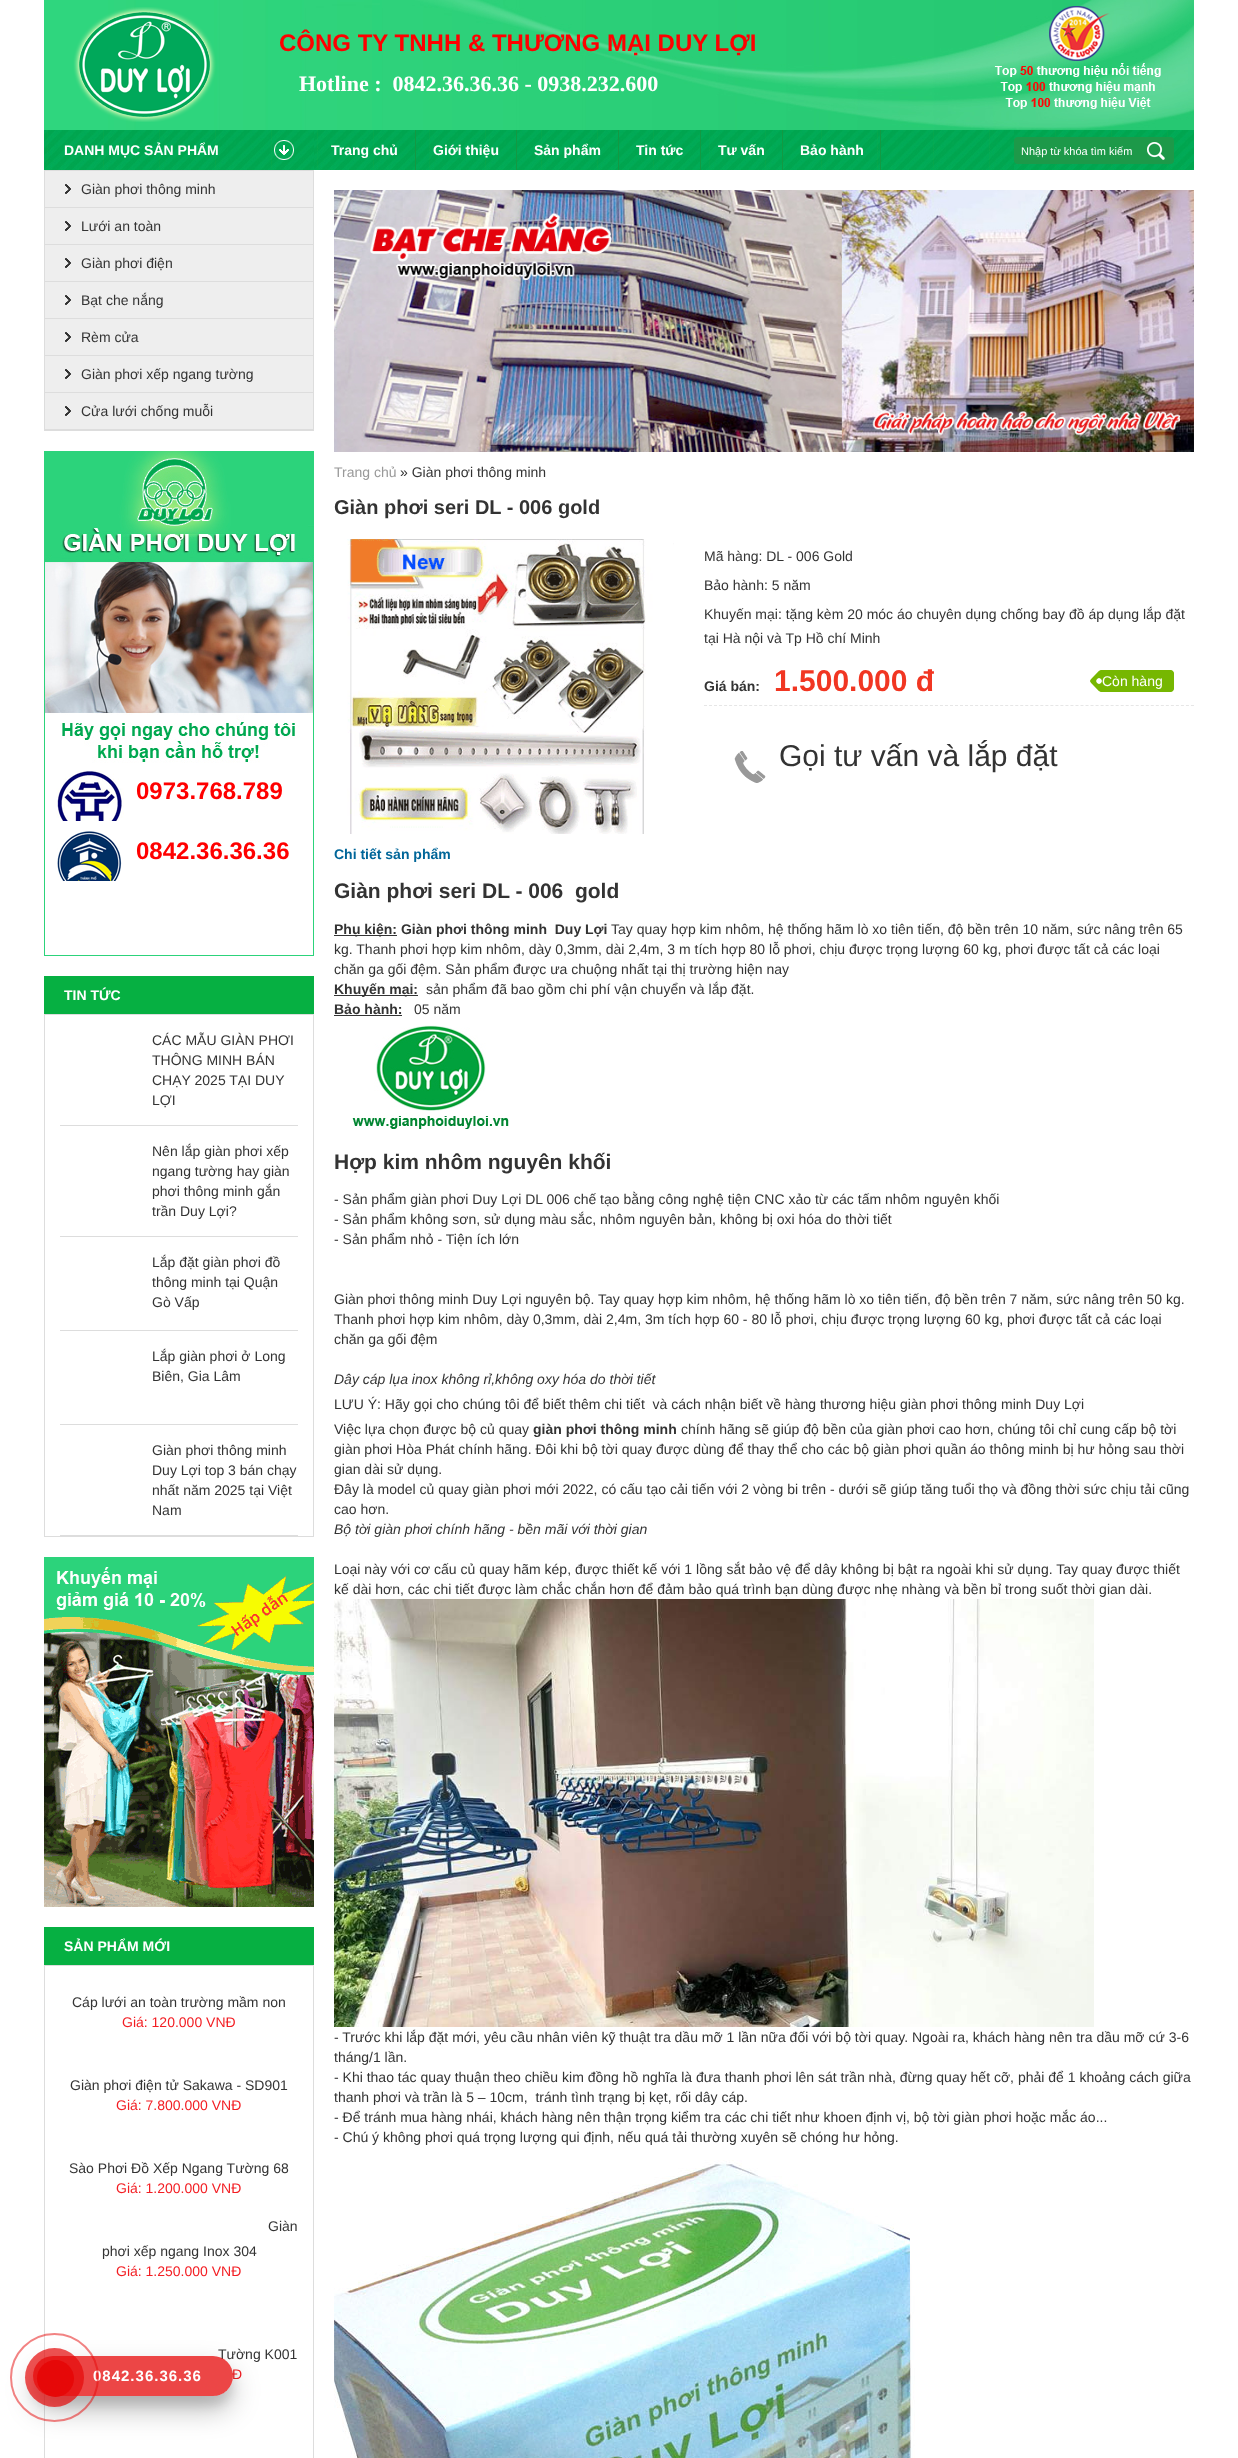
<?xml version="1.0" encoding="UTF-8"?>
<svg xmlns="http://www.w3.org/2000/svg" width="1238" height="2458">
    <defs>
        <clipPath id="clip1"><path d="M 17 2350 H 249 V 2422 H 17 Z M 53 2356 H 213 C 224 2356 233 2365 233 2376 C 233 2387 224 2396 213 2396 H 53 C 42 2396 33 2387 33 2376 C 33 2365 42 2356 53 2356 Z" clip-rule="evenodd"/></clipPath>
        <filter id="blur1" x="-50%" y="-200%" width="200%" height="500%"><feGaussianBlur stdDeviation="5"/></filter>
        <clipPath id="clip2"><path d="M 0 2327 H 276 V 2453 H 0 Z M 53 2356 H 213 C 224 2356 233 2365 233 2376 C 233 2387 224 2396 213 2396 H 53 C 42 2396 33 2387 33 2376 C 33 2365 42 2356 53 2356 Z" clip-rule="evenodd"/></clipPath>
        <filter id="blur2" x="-50%" y="-200%" width="200%" height="500%"><feGaussianBlur stdDeviation="14"/></filter>
    </defs>
    <rect width="100%" height="100%" fill="#FFFFFF"/>
    <image x="44" y="0" width="1150" height="130" href="img_01.png"/>
    <image x="73" y="7" width="143" height="115" href="img_02.png"/>
    <text x="279" y="51" font-family="Liberation Sans" font-size="24" font-weight="700" fill="#FF0000">CÔNG TY TNHH &amp; THƯƠNG MẠI DUY LỢI</text>
    <text x="299" y="91" font-family="Liberation Serif" font-size="22" font-weight="700" fill="#FFFFFF" xml:space="preserve">Hotline :  0842.36.36.36 - 0938.232.600</text>
    <image x="994" y="6" width="167" height="103" href="img_03.png"/>
    <image x="44" y="130" width="1150" height="40" href="img_04.png"/>
    <text x="64" y="155" font-family="Liberation Sans" font-size="14" font-weight="700" fill="#FFFFFF">DANH MỤC SẢN PHẨM</text>
    <image x="274" y="140" width="20" height="20" href="img_05.png"/>
    <image x="314" y="130" width="700" height="40" href="img_06.png"/>
    <rect x="415" y="130" width="1" height="40" fill="#139943"/>
    <text x="331" y="155" font-family="Liberation Sans" font-size="14" font-weight="700" fill="#FFFFFF">Trang chủ</text>
    <rect x="516" y="130" width="1" height="40" fill="#139943"/>
    <text x="433" y="155" font-family="Liberation Sans" font-size="14" font-weight="700" fill="#FFFFFF">Giới thiệu</text>
    <rect x="618" y="130" width="1" height="40" fill="#139943"/>
    <text x="534" y="155" font-family="Liberation Sans" font-size="14" font-weight="700" fill="#FFFFFF">Sản phẩm</text>
    <rect x="700" y="130" width="1" height="40" fill="#139943"/>
    <text x="636" y="155" font-family="Liberation Sans" font-size="14" font-weight="700" fill="#FFFFFF">Tin tức</text>
    <rect x="782" y="130" width="1" height="40" fill="#139943"/>
    <text x="718" y="155" font-family="Liberation Sans" font-size="14" font-weight="700" fill="#FFFFFF">Tư vấn</text>
    <rect x="880" y="130" width="1" height="40" fill="#139943"/>
    <text x="800" y="155" font-family="Liberation Sans" font-size="14" font-weight="700" fill="#FFFFFF">Bảo hành</text>
    <rect x="1014" y="137" width="160" height="27" rx="4" fill="#1D9949"/>
    <text x="1021" y="155" font-family="Liberation Sans" font-size="11" fill="#FFFFFF">Nhập từ khóa tìm kiếm</text>
    <image x="1147" y="142" width="18" height="18" href="img_07.png"/>
    <rect x="45" y="171" width="268" height="258" fill="#EEEEEE"/>
    <rect x="44.5" y="170.5" width="269" height="260" fill="none" stroke="#DDDDDD"/>
    <rect x="45" y="207" width="268" height="1" fill="#DDDDDD"/>
    <image x="65" y="184" width="6" height="10" href="img_08.png"/>
    <text x="81" y="194" font-family="Liberation Sans" font-size="14" fill="#333333">Giàn phơi thông minh</text>
    <rect x="45" y="244" width="268" height="1" fill="#DDDDDD"/>
    <image x="65" y="221" width="6" height="10" href="img_08.png"/>
    <text x="81" y="231" font-family="Liberation Sans" font-size="14" fill="#333333">Lưới an toàn</text>
    <rect x="45" y="281" width="268" height="1" fill="#DDDDDD"/>
    <image x="65" y="258" width="6" height="10" href="img_08.png"/>
    <text x="81" y="268" font-family="Liberation Sans" font-size="14" fill="#333333">Giàn phơi điện</text>
    <rect x="45" y="318" width="268" height="1" fill="#DDDDDD"/>
    <image x="65" y="295" width="6" height="10" href="img_08.png"/>
    <text x="81" y="305" font-family="Liberation Sans" font-size="14" fill="#333333">Bạt che nắng</text>
    <rect x="45" y="355" width="268" height="1" fill="#DDDDDD"/>
    <image x="65" y="332" width="6" height="10" href="img_08.png"/>
    <text x="81" y="342" font-family="Liberation Sans" font-size="14" fill="#333333">Rèm cửa</text>
    <rect x="45" y="392" width="268" height="1" fill="#DDDDDD"/>
    <image x="65" y="369" width="6" height="10" href="img_08.png"/>
    <text x="81" y="379" font-family="Liberation Sans" font-size="14" fill="#333333">Giàn phơi xếp ngang tường</text>
    <rect x="45" y="429" width="268" height="1" fill="#DDDDDD"/>
    <image x="65" y="406" width="6" height="10" href="img_08.png"/>
    <text x="81" y="416" font-family="Liberation Sans" font-size="14" fill="#333333">Cửa lưới chống muỗi</text>
    <image x="44" y="451" width="270" height="505" href="img_09.png"/>
    <image x="56" y="771" width="68" height="50" href="img_10.png"/>
    <text x="136" y="799" font-family="Liberation Sans" font-size="24" font-weight="700" fill="#FF0000">0973.768.789</text>
    <image x="57" y="831" width="65" height="50" href="img_11.png"/>
    <text x="136" y="859" font-family="Liberation Sans" font-size="24" font-weight="700" fill="#FF0000">0842.36.36.36</text>
    <rect x="44" y="976" width="270" height="38" fill="#06B042"/>
    <text x="64" y="1000" font-family="Liberation Sans" font-size="14" font-weight="700" fill="#FFFFFF">TIN TỨC</text>
    <rect x="44.5" y="1014.5" width="269" height="522" fill="none" stroke="#DDDDDD"/>
    <rect x="60" y="1125" width="238" height="1" fill="#DDDDDD"/>
    <text font-family="Liberation Sans" font-size="14" fill="#333333">
        <tspan x="152" y="1045">CÁC MẪU GIÀN PHƠI</tspan>
        <tspan x="152" y="1065">THÔNG MINH BÁN</tspan>
        <tspan x="152" y="1085">CHẠY 2025 TẠI DUY</tspan>
        <tspan x="152" y="1105">LỢI</tspan>
    </text>
    <rect x="60" y="1236" width="238" height="1" fill="#DDDDDD"/>
    <text font-family="Liberation Sans" font-size="14" fill="#333333">
        <tspan x="152" y="1156">Nên lắp giàn phơi xếp</tspan>
        <tspan x="152" y="1176">ngang tường hay giàn</tspan>
        <tspan x="152" y="1196">phơi thông minh gắn</tspan>
        <tspan x="152" y="1216">trần Duy Lợi?</tspan>
    </text>
    <rect x="60" y="1330" width="238" height="1" fill="#DDDDDD"/>
    <text font-family="Liberation Sans" font-size="14" fill="#333333">
        <tspan x="152" y="1267">Lắp đặt giàn phơi đồ</tspan>
        <tspan x="152" y="1287">thông minh tại Quận</tspan>
        <tspan x="152" y="1307">Gò Vấp</tspan>
    </text>
    <rect x="60" y="1424" width="238" height="1" fill="#DDDDDD"/>
    <text font-family="Liberation Sans" font-size="14" fill="#333333">
        <tspan x="152" y="1361">Lắp giàn phơi ở Long</tspan>
        <tspan x="152" y="1381">Biên, Gia Lâm</tspan>
    </text>
    <rect x="60" y="1535" width="238" height="1" fill="#DDDDDD"/>
    <text font-family="Liberation Sans" font-size="14" fill="#333333">
        <tspan x="152" y="1455">Giàn phơi thông minh</tspan>
        <tspan x="152" y="1475">Duy Lợi top 3 bán chạy</tspan>
        <tspan x="152" y="1495">nhất năm 2025 tại Việt</tspan>
        <tspan x="152" y="1515">Nam</tspan>
    </text>
    <image x="44" y="1557" width="270" height="350" href="img_12.png"/>
    <rect x="44" y="1927" width="270" height="38" fill="#06B042"/>
    <text x="64" y="1951" font-family="Liberation Sans" font-size="14" font-weight="700" fill="#FFFFFF">SẢN PHẨM MỚI</text>
    <rect x="44.5" y="1965.5" width="269" height="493" fill="none" stroke="#DDDDDD"/>
    <text x="72" y="2007" font-family="Liberation Sans" font-size="14" fill="#333333">Cáp lưới an toàn trường mầm non</text>
    <text x="122" y="2027" font-family="Liberation Sans" font-size="14" fill="#F31D22">Giá: 120.000 VNĐ</text>
    <text x="70" y="2090" font-family="Liberation Sans" font-size="14" fill="#333333">Giàn phơi điện tử Sakawa - SD901</text>
    <text x="116" y="2110" font-family="Liberation Sans" font-size="14" fill="#F31D22">Giá: 7.800.000 VNĐ</text>
    <text x="69" y="2173" font-family="Liberation Sans" font-size="14" fill="#333333">Sào Phơi Đồ Xếp Ngang Tường 68</text>
    <text x="116" y="2193" font-family="Liberation Sans" font-size="14" fill="#F31D22">Giá: 1.200.000 VNĐ</text>
    <text x="268" y="2231" font-family="Liberation Sans" font-size="14" fill="#333333">Giàn</text>
    <text x="102" y="2256" font-family="Liberation Sans" font-size="14" fill="#333333">phơi xếp ngang Inox 304</text>
    <text x="116" y="2276" font-family="Liberation Sans" font-size="14" fill="#F31D22">Giá: 1.250.000 VNĐ</text>
    <text x="218" y="2359" font-family="Liberation Sans" font-size="14" fill="#333333">Tường K001</text>
    <text x="232" y="2379" font-family="Liberation Sans" font-size="14" fill="#F31D22">Đ</text>
    <image x="334" y="190" width="860" height="262" href="img_13.png"/>
    <text x="334" y="477" font-family="Liberation Sans" font-size="14" fill="#999999">Trang chủ</text>
    <text x="400" y="477" font-family="Liberation Sans" font-size="14" fill="#333333">» Giàn phơi thông minh</text>
    <text x="334" y="514" font-family="Liberation Sans" font-size="20" font-weight="700" fill="#333333">Giàn phơi seri DL - 006 gold</text>
    <image x="347" y="539" width="327" height="295" href="img_14.png"/>
    <text x="704" y="561" font-family="Liberation Sans" font-size="14" fill="#333333">Mã hàng: DL - 006 Gold</text>
    <text x="704" y="590" font-family="Liberation Sans" font-size="14" fill="#333333">Bảo hành: 5 năm</text>
    <text font-family="Liberation Sans" font-size="14" fill="#333333">
        <tspan x="704" y="619">Khuyến mại: tặng kèm 20 móc áo chuyên dụng chống bay đồ áp dụng lắp đặt</tspan>
        <tspan x="704" y="643">tại Hà nội và Tp Hồ chí Minh</tspan>
    </text>
    <path d="M 704 705.5 H 1194" fill="none" stroke="#E6E6E6" stroke-dasharray="3 2.02"/>
    <text x="704" y="691" font-family="Liberation Sans" font-size="14" font-weight="700" fill="#333333">Giá bán:</text>
    <text x="774" y="691" font-family="Liberation Sans" font-size="30" font-weight="700" fill="#F13622">1.500.000 đ</text>
    <image x="1090" y="670" width="84" height="22" href="img_15.png"/>
    <text x="1102" y="686" font-family="Liberation Sans" font-size="14" fill="#FFFFFF">Còn hàng</text>
    <image x="734" y="751" width="32" height="32" href="img_16.png"/>
    <text x="779" y="766" font-family="Liberation Sans" font-size="30" fill="#333333">Gọi tư vấn và lắp đặt</text>
    <text x="334" y="859" font-family="Liberation Sans" font-size="14" font-weight="700" fill="#006699">Chi tiết sản phẩm</text>
    <text x="334" y="898" font-family="Liberation Sans" font-size="21" font-weight="700" fill="#333333" xml:space="preserve">Giàn phơi seri DL - 006  gold</text>
    <rect x="334" y="935" width="63" height="1" fill="#333333"/>
    <text x="334" y="934" font-family="Liberation Sans" font-size="14" font-weight="700" fill="#333333" xml:space="preserve">Phụ kiện: Giàn phơi thông minh  Duy Lợi</text>
    <text x="611" y="934" font-family="Liberation Sans" font-size="14" fill="#333333">Tay quay hợp kim nhôm, hệ thống hãm lò xo tiên tiến, độ bền trên 10 năm, sức nâng trên 65</text>
    <text font-family="Liberation Sans" font-size="14" fill="#333333">
        <tspan x="334" y="954">kg. Thanh phơi hợp kim nhôm, dày 0,3mm, dài 2,4m, 3 m tích hợp 80 lỗ phơi, chịu được trọng lượng 60 kg, phơi được tất cả các loại</tspan>
        <tspan x="334" y="974">chăn ga gối đệm. Sản phẩm được ưa chuộng nhất tại thị trường hiện nay</tspan>
    </text>
    <rect x="334" y="995" width="84" height="1" fill="#333333"/>
    <text x="334" y="994" font-family="Liberation Sans" font-size="14" font-weight="700" fill="#333333">Khuyến mại:</text>
    <text x="426" y="994" font-family="Liberation Sans" font-size="14" fill="#333333">sản phẩm đã bao gồm chi phí vận chuyển và lắp đặt.</text>
    <text x="334" y="1014" font-family="Liberation Sans" font-size="14" font-weight="700" fill="#333333">Bảo hành:</text>
    <rect x="334" y="1015" width="68" height="1" fill="#333333"/>
    <text x="414" y="1014" font-family="Liberation Sans" font-size="14" fill="#333333">05 năm</text>
    <image x="352" y="1025" width="157" height="104" href="img_17.png"/>
    <text x="334" y="1169" font-family="Liberation Sans" font-size="21" font-weight="700" fill="#333333">Hợp kim nhôm nguyên khối</text>
    <text font-family="Liberation Sans" font-size="14" fill="#333333">
        <tspan x="334" y="1204">- Sản phẩm giàn phơi Duy Lợi DL 006 chế tạo bằng công nghệ tiện CNC xảo từ các tấm nhôm nguyên khối</tspan>
        <tspan x="334" y="1224">- Sản phẩm không sơn, sử dụng màu sắc, nhôm nguyên bản, không bị oxi hóa do thời tiết</tspan>
        <tspan x="334" y="1244">- Sản phẩm nhỏ - Tiện ích lớn</tspan>
    </text>
    <text font-family="Liberation Sans" font-size="14" fill="#333333">
        <tspan x="334" y="1304">Giàn phơi thông minh Duy Lợi nguyên bộ. Tay quay hợp kim nhôm, hệ thống hãm lò xo tiên tiến, độ bền trên 7 năm, sức nâng trên 50 kg.</tspan>
        <tspan x="334" y="1324">Thanh phơi hợp kim nhôm, dày 0,3mm, dài 2,4m, 3m tích hợp 60 - 80 lỗ phơi, chịu được trọng lượng 60 kg, phơi được tất cả các loại</tspan>
        <tspan x="334" y="1344">chăn ga gối đệm</tspan>
    </text>
    <text x="334" y="1384" font-family="Liberation Sans" font-size="14" font-style="italic" fill="#333333">Dây cáp lụa inox không rỉ,không oxy hóa do thời tiết</text>
    <text font-family="Liberation Sans" font-size="14" fill="#333333" xml:space="preserve"><tspan x="334" y="1409">LƯU Ý: Hãy gọi cho chúng tôi để biết thêm chi tiết  và cách nhận biết về hàng thương hiệu giàn phơi thông minh Duy Lợi</tspan><tspan x="334" y="1434">Việc lựa chọn được bộ củ quay</tspan></text>
    <text x="533" y="1434" font-family="Liberation Sans" font-size="14" font-weight="700" fill="#333333">giàn phơi thông minh</text>
    <text x="681" y="1434" font-family="Liberation Sans" font-size="14" fill="#333333">chính hãng sẽ giúp độ bền của giàn phơi cao hơn, chúng tôi chỉ cung cấp bộ tời</text>
    <text font-family="Liberation Sans" font-size="14" fill="#333333">
        <tspan x="334" y="1454">giàn phơi Hòa Phát chính hãng. Đôi khi bộ tời quay được dùng để thay thể cho các bộ giàn phơi quần áo thông minh bị hư hỏng sau thời</tspan>
        <tspan x="334" y="1474">gian dài sử dụng.</tspan>
        <tspan x="334" y="1494">Đây là model củ quay giàn phơi mới 2022, có cấu tạo cải tiến với 2 vòng bi trên - dưới sẽ giúp tăng tuổi thọ và đồng thời sức chịu tải cũng</tspan>
        <tspan x="334" y="1514">cao hơn.</tspan>
    </text>
    <text x="334" y="1534" font-family="Liberation Sans" font-size="14" font-style="italic" fill="#333333">Bộ tời giàn phơi chính hãng - bền mãi với thời gian</text>
    <text font-family="Liberation Sans" font-size="14" fill="#333333">
        <tspan x="334" y="1574">Loại này với cơ cấu củ quay hãm kép, được thiết kế với 1 lồng sắt bảo vệ để dây không bị bật ra ngoài khi sử dụng. Tay quay được thiết</tspan>
        <tspan x="334" y="1594">kế dài hơn, các chi tiết được làm chắc chắn hơn để đảm bảo quá trình bạn dùng được nhẹ nhàng và bền bỉ trong suốt thời gian dài.</tspan>
    </text>
    <image x="334" y="1599" width="760" height="428" href="img_18.png"/>
    <text font-family="Liberation Sans" font-size="14" fill="#333333" xml:space="preserve"><tspan x="334" y="2042">- Trước khi lắp đặt mới, yêu cầu nhân viên kỹ thuật tra dầu mỡ 1 lần nữa đối với bộ tời quay. Ngoài ra, khách hàng nên tra dầu mỡ cứ 3-6</tspan><tspan x="334" y="2062">tháng/1 lần.</tspan><tspan x="334" y="2082">- Khi thao tác quay thuận theo chiều kim đồng hồ nghĩa là đưa thanh phơi lên sát trần nhà, đừng quay hết cỡ, phải để 1 khoảng cách giữa</tspan><tspan x="334" y="2102">thanh phơi và trần là 5 – 10cm,  tránh tình trạng bị kẹt, rối dây cáp.</tspan><tspan x="334" y="2122">- Để tránh mua hàng nhái, khách hàng nên thận trọng kiểm tra các chi tiết như khoen định vị, bộ tời giàn phơi hoặc mắc áo...</tspan><tspan x="334" y="2142">- Chú ý không phơi quá trọng lượng qui định, nếu quá tải thường xuyên sẽ chóng hư hỏng.</tspan></text>
    <image x="334" y="2160" width="581" height="298" href="img_19.png"/>
    <g clip-path="url(#clip1)">
        <rect x="33" y="2366" width="200" height="40" rx="20" fill="#000000" fill-opacity="0.1" filter="url(#blur1)"/>
    </g>
    <g clip-path="url(#clip2)">
        <rect x="33" y="2370" width="200" height="40" rx="20" fill="#000000" fill-opacity="0.25" filter="url(#blur2)"/>
    </g>
    <rect x="33" y="2356" width="200" height="40" rx="20" fill="#E60808" fill-opacity="0.75"/>
    <text x="93" y="2381" font-family="Liberation Sans" font-size="15" font-weight="700" letter-spacing="1" fill="#FFFFFF">0842.36.36.36</text>
    <circle cx="54.5" cy="2377.5" r="43.5" fill="none" stroke="#E60808" stroke-opacity="0.5" stroke-width="2"/>
    <circle cx="54.5" cy="2377.5" r="29.5" fill="#E60808" fill-opacity="0.7"/>
    <circle cx="55.5" cy="2378.5" r="18.5" fill="#E60808"/>
</svg>
